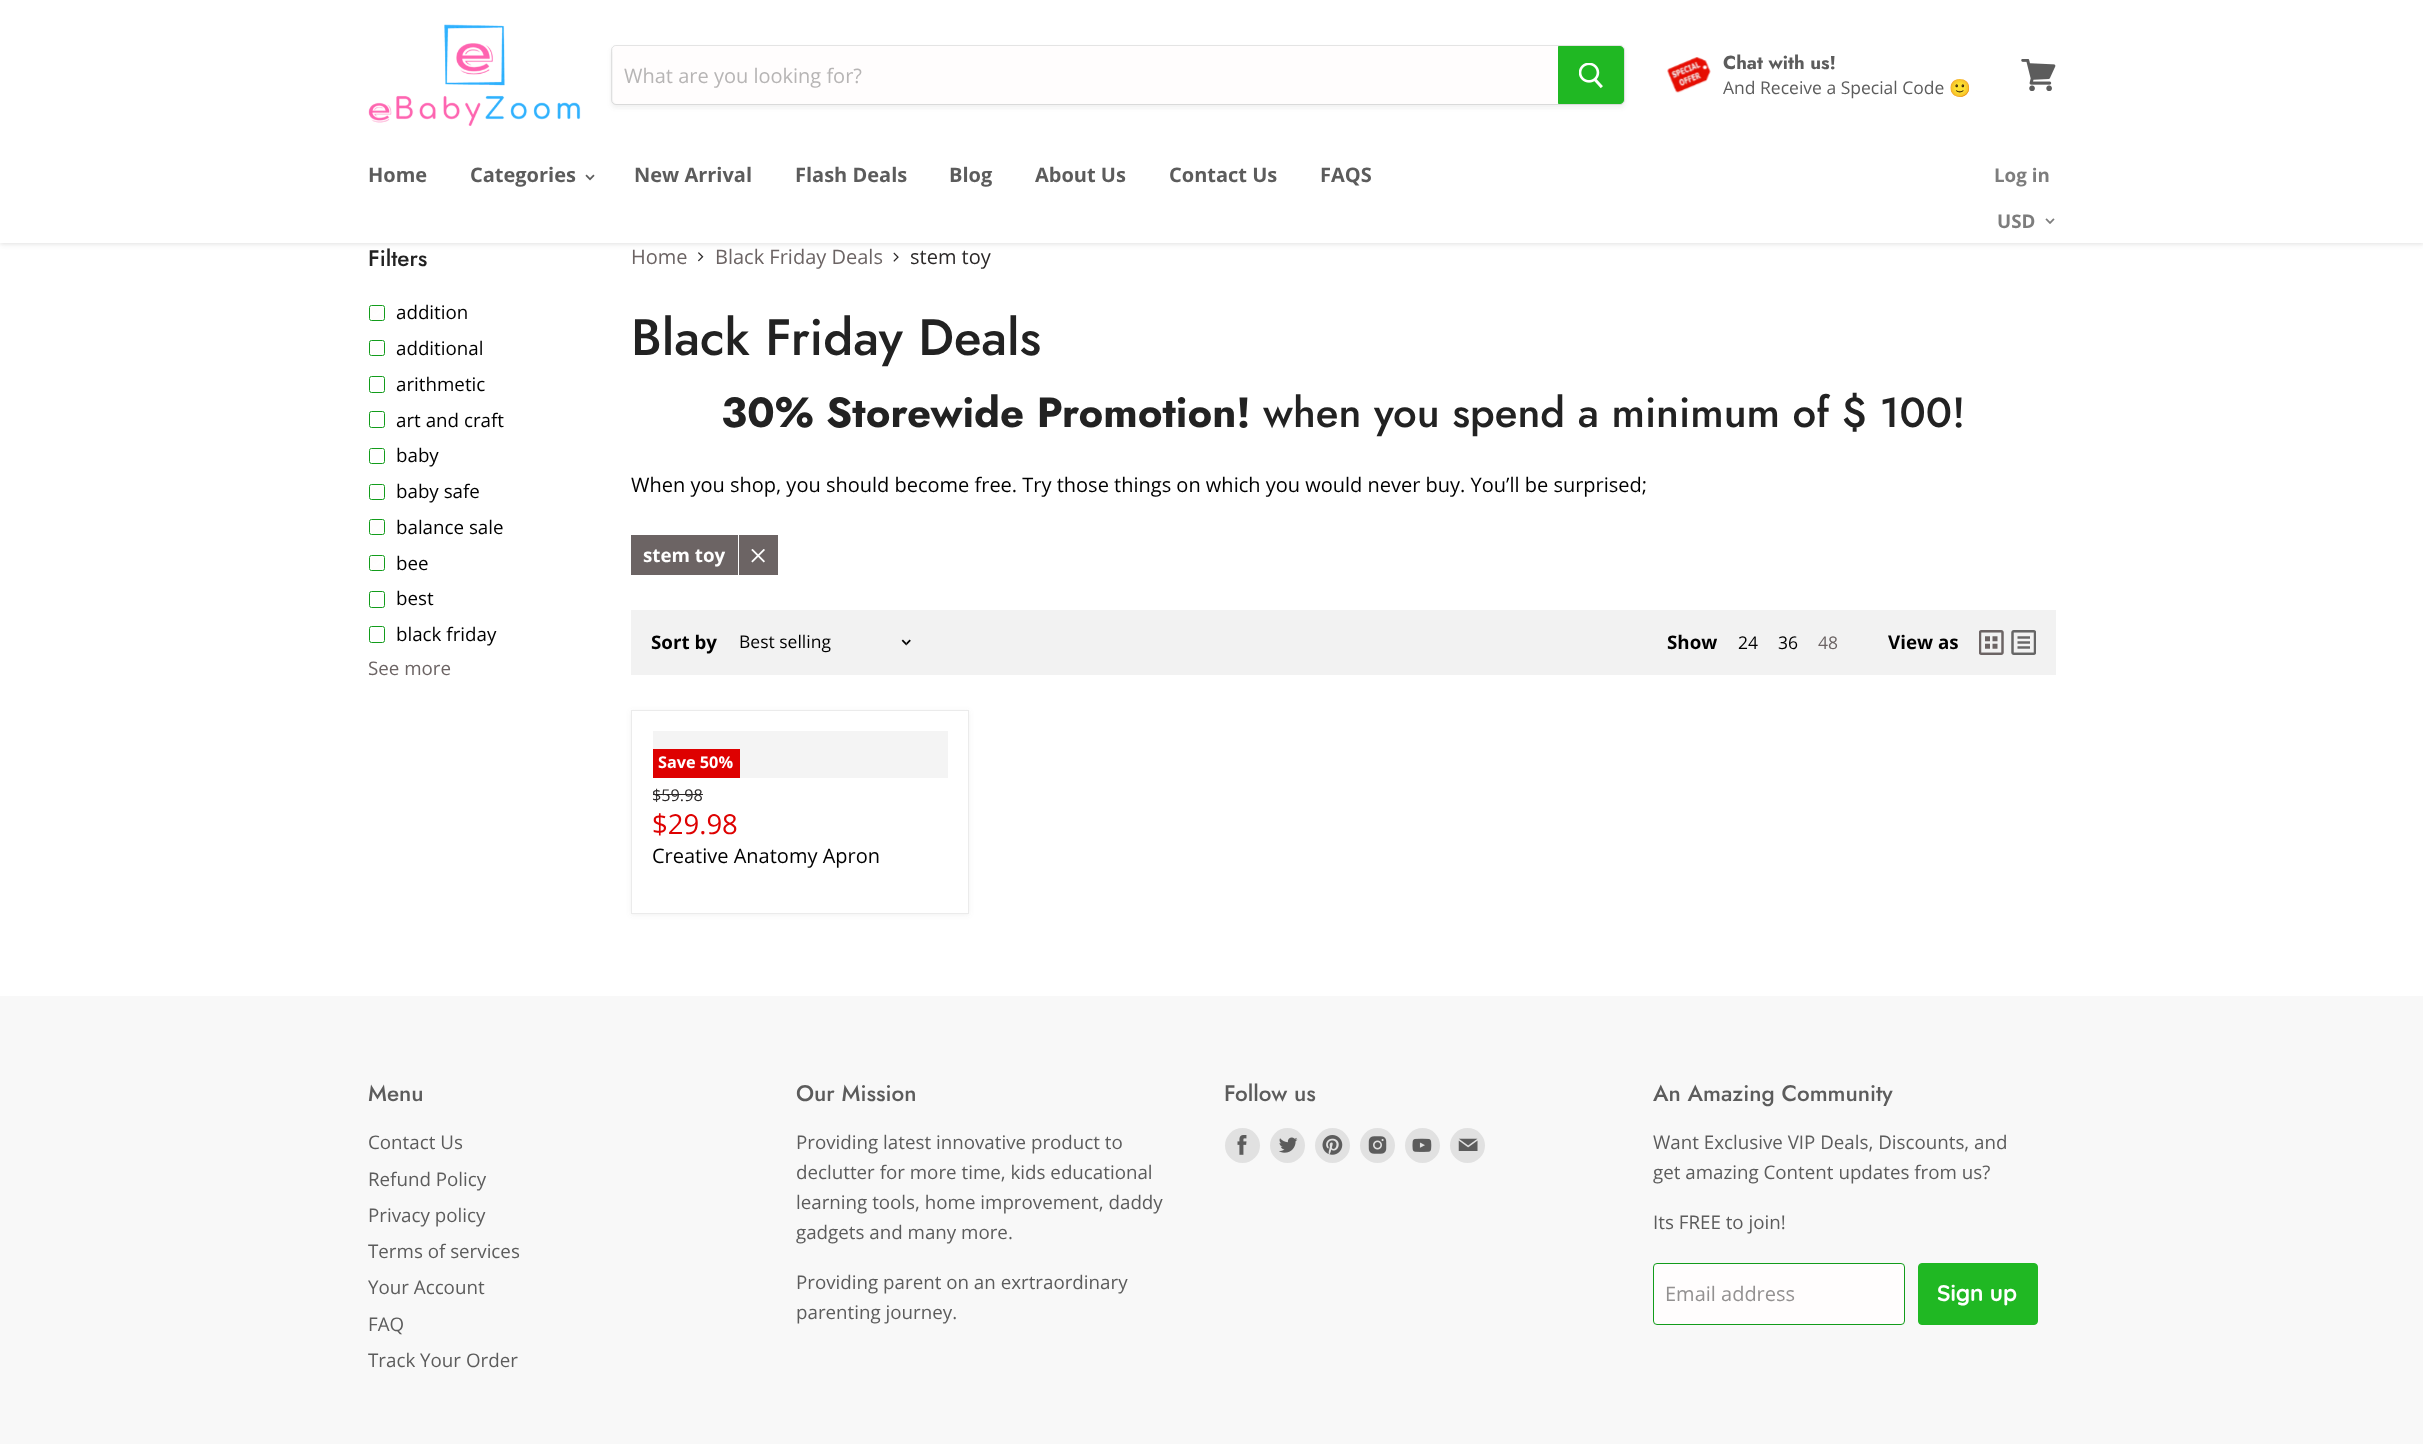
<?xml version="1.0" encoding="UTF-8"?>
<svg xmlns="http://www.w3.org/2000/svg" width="2423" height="1444">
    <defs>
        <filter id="blur1" x="-50%" y="-200%" width="200%" height="500%"><feGaussianBlur stdDeviation="2.5"/></filter>
        <filter id="blur2" x="-50%" y="-200%" width="200%" height="500%"><feGaussianBlur stdDeviation="2"/></filter>
    </defs>
    <rect width="100%" height="100%" fill="#FFFFFF"/>
    <image x="698" y="252" width="6" height="10" href="img_10.png"/>
    <image x="893" y="252" width="6" height="10" href="img_11.png"/>
    <rect x="0" y="1" width="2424" height="243" fill="#7F7F7F" fill-opacity="0.25" filter="url(#blur1)"/>
    <rect x="0" y="0" width="2423" height="243" fill="#FFFFFF"/>
    <image x="368" y="24" width="213" height="102" href="img_01.png"/>
    <rect x="611" y="48" width="1014" height="60" rx="5" fill="#7F7F7F" fill-opacity="0.11" filter="url(#blur2)"/>
    <rect x="611.5" y="45.5" width="1013" height="59" rx="4.5" fill="none" stroke="#7F7F7F" stroke-opacity="0.2"/>
    <path d="M 617 46 H 1558 V 104 H 617 C 615 104 613 102 613 100 V 50 C 613 48 615 46 617 46 Z" fill="#FFFDFD"/>
    <text x="624" y="83" font-family="Open Sans" font-size="20" fill="#B7B5B5">What are you looking for?</text>
    <path d="M 1558.5 46.5 H 1620 C 1622 46.5 1623.5 48 1623.5 50 V 100 C 1623.5 102 1622 103.5 1620 103.5 H 1558.5 Z" fill="#20B823" stroke="#20B823"/>
    <image x="1579" y="63" width="24" height="26" href="img_02.png"/>
    <image x="1667" y="57" width="44" height="36" href="img_03.png"/>
    <text x="1723" y="69" font-family="Jost" font-size="18.75" font-weight="700" fill="#5C5C5C">Chat with us!</text>
    <text x="1723" y="94" font-family="Open Sans" font-size="17.5" fill="#5C5C5C">And Receive a Special Code</text>
    <text x="1949" y="94" font-family="Noto Color Emoji" font-size="17.5" fill="#5C5C5C">🙂</text>
    <image x="2021" y="59" width="35" height="32" href="img_04.png"/>
    <text x="368" y="182" font-family="Open Sans" font-size="20" font-weight="700" fill="#5C5C5C">Home</text>
    <text x="470" y="182" font-family="Open Sans" font-size="20" font-weight="700" fill="#5C5C5C">Categories</text>
    <image x="585" y="174" width="10" height="7" href="img_05.png"/>
    <text x="634" y="182" font-family="Open Sans" font-size="20" font-weight="700" fill="#5C5C5C">New Arrival</text>
    <text x="795" y="182" font-family="Open Sans" font-size="20" font-weight="700" fill="#5C5C5C">Flash Deals</text>
    <text x="949" y="182" font-family="Open Sans" font-size="20" font-weight="700" fill="#5C5C5C">Blog</text>
    <text x="1035" y="182" font-family="Open Sans" font-size="20" font-weight="700" fill="#5C5C5C">About Us</text>
    <text x="1169" y="182" font-family="Open Sans" font-size="20" font-weight="700" fill="#5C5C5C">Contact Us</text>
    <text x="1320" y="182" font-family="Open Sans" font-size="20" font-weight="700" fill="#5C5C5C">FAQS</text>
    <text x="1994" y="182" font-family="Open Sans" font-size="18.75" font-weight="700" fill="#7D7D7D">Log in</text>
    <text x="1997" y="228" font-family="Open Sans" font-size="18.75" font-weight="700" fill="#7D7D7D">USD</text>
    <image x="2045" y="218" width="10" height="6" href="img_06.png"/>
    <text x="368" y="266" font-family="Jost" font-size="22.5" font-weight="500" fill="#222222">Filters</text>
    <rect x="369.5" y="305.5" width="15" height="15" rx="2" fill="none" stroke="#129C1B"/>
    <image x="370" y="306" width="14" height="14" href="img_07.png"/>
    <text x="396" y="319" font-family="Open Sans" font-size="18.75" fill="#000000">addition</text>
    <rect x="369.5" y="340.5" width="15" height="15" rx="2" fill="none" stroke="#129C1B"/>
    <image x="370" y="341" width="14" height="14" href="img_07.png"/>
    <text x="396" y="355" font-family="Open Sans" font-size="18.75" fill="#000000">additional</text>
    <rect x="369.5" y="376.5" width="15" height="16" rx="2" fill="none" stroke="#129C1B"/>
    <text x="396" y="391" font-family="Open Sans" font-size="18.75" fill="#000000">arithmetic</text>
    <rect x="369.5" y="411.5" width="15" height="16" rx="2" fill="none" stroke="#129C1B"/>
    <text x="396" y="427" font-family="Open Sans" font-size="18.75" fill="#000000">art and craft</text>
    <rect x="369.5" y="448.5" width="15" height="15" rx="2" fill="none" stroke="#129C1B"/>
    <image x="370" y="449" width="14" height="2" href="img_08.png"/>
    <text x="396" y="462" font-family="Open Sans" font-size="18.75" fill="#000000">baby</text>
    <rect x="369.5" y="484.5" width="15" height="15" rx="2" fill="none" stroke="#129C1B"/>
    <image x="370" y="485" width="14" height="14" href="img_09.png"/>
    <text x="396" y="498" font-family="Open Sans" font-size="18.75" fill="#000000">baby safe</text>
    <rect x="369.5" y="519.5" width="15" height="15" rx="2" fill="none" stroke="#129C1B"/>
    <image x="370" y="520" width="14" height="14" href="img_09.png"/>
    <text x="396" y="534" font-family="Open Sans" font-size="18.75" fill="#000000">balance sale</text>
    <rect x="369.5" y="555.5" width="15" height="15" rx="2" fill="none" stroke="#129C1B"/>
    <image x="370" y="556" width="14" height="14" href="img_07.png"/>
    <text x="396" y="570" font-family="Open Sans" font-size="18.75" fill="#000000">bee</text>
    <rect x="369.5" y="591.5" width="15" height="16" rx="2" fill="none" stroke="#129C1B"/>
    <text x="396" y="605" font-family="Open Sans" font-size="18.75" fill="#000000">best</text>
    <rect x="369.5" y="626.5" width="15" height="16" rx="2" fill="none" stroke="#129C1B"/>
    <text x="396" y="641" font-family="Open Sans" font-size="18.75" fill="#000000">black friday</text>
    <text x="368" y="675" font-family="Open Sans" font-size="18.75" fill="#6C6464">See more</text>
    <text x="631" y="264" font-family="Open Sans" font-size="20" fill="#6C6464">Home</text>
    <text x="715" y="264" font-family="Open Sans" font-size="20" fill="#6C6464">Black Friday Deals</text>
    <text x="910" y="264" font-family="Open Sans" font-size="20" fill="#2B2828">stem toy</text>
    <text x="631" y="355" font-family="Jost" font-size="51" font-weight="500" fill="#222222">Black Friday Deals</text>
    <text x="721" y="427" font-family="Jost" font-size="42" font-weight="700" fill="#222222">30% Storewide Promotion!</text>
    <text x="1263" y="427" font-family="Jost" font-size="42" font-weight="500" fill="#222222">when you spend a minimum of $ 100!</text>
    <text x="631" y="492" font-family="Open Sans" font-size="20" fill="#000000">When you shop, you should become free. Try those things on which you would never buy. You’ll be surprised;</text>
    <rect x="631" y="535" width="147" height="40" fill="#6C6464"/>
    <rect x="738" y="535" width="1" height="40" fill="#FFFFFF"/>
    <text x="643" y="562" font-family="Open Sans" font-size="18.75" font-weight="700" fill="#FFFFFF">stem toy</text>
    <image x="751" y="549" width="14" height="14" href="img_12.png"/>
    <rect x="631" y="610" width="1425" height="65" fill="#F2F2F2"/>
    <text x="651" y="649" font-family="Open Sans" font-size="18.75" font-weight="700" fill="#000000">Sort by</text>
    <text x="739" y="648" font-family="Open Sans" font-size="17.5" fill="#000000">Best selling</text>
    <image x="901" y="639" width="10" height="7" href="img_13.png"/>
    <text x="1667" y="649" font-family="Open Sans" font-size="18.75" font-weight="700" fill="#000000">Show</text>
    <text x="1738" y="649" font-family="Open Sans" font-size="17.5" fill="#000000">24</text>
    <text x="1778" y="649" font-family="Open Sans" font-size="17.5" fill="#000000">36</text>
    <text x="1818" y="649" font-family="Open Sans" font-size="17.5" fill="#6C6464">48</text>
    <text x="1888" y="649" font-family="Open Sans" font-size="18.75" font-weight="700" fill="#000000">View as</text>
    <image x="1979" y="630" width="25" height="25" href="img_14.png"/>
    <image x="2011" y="630" width="25" height="25" href="img_15.png"/>
    <rect x="631" y="711" width="338" height="204" fill="#7F7F7F" fill-opacity="0.11" filter="url(#blur1)"/>
    <rect x="631.5" y="710.5" width="337" height="203" fill="#FFFFFF" stroke="#EBEBEB"/>
    <rect x="653" y="731" width="295" height="47" fill="#F4F4F4"/>
    <rect x="653" y="749" width="87" height="29" fill="#DE0101"/>
    <text x="658" y="768" font-family="Open Sans" font-size="16.25" font-weight="700" fill="#FFFFFF">Save 50%</text>
    <text x="652" y="801" font-family="Open Sans" font-size="16.25" fill="#2B2828">$59.98</text>
    <rect x="653" y="794" width="50" height="1" fill="#2B2828"/>
    <text x="652" y="834" font-family="Open Sans" font-size="27.5" fill="#DE0101">$29.98</text>
    <text x="652" y="863" font-family="Open Sans" font-size="20" fill="#000000">Creative Anatomy Apron</text>
    <rect x="0" y="996" width="2423" height="448" fill="#F8F8F8"/>
    <text x="368" y="1101" font-family="Jost" font-size="22.5" font-weight="500" fill="#5C5C5C">Menu</text>
    <text font-family="Open Sans" font-size="18.75" fill="#5C5C5C">
        <tspan x="368" y="1149">Contact Us</tspan>
        <tspan x="368" y="1186">Refund Policy</tspan>
        <tspan x="368" y="1222">Privacy policy</tspan>
        <tspan x="368" y="1258">Terms of services</tspan>
        <tspan x="368" y="1294">Your Account</tspan>
        <tspan x="368" y="1331">FAQ</tspan>
        <tspan x="368" y="1367">Track Your Order</tspan>
    </text>
    <text x="796" y="1101" font-family="Jost" font-size="22.5" font-weight="500" fill="#5C5C5C">Our Mission</text>
    <text font-family="Open Sans" font-size="18.75" fill="#5C5C5C">
        <tspan x="796" y="1149">Providing latest innovative product to</tspan>
        <tspan x="796" y="1179">declutter for more time, kids educational</tspan>
        <tspan x="796" y="1209">learning tools, home improvement, daddy</tspan>
        <tspan x="796" y="1239">gadgets and many more.</tspan>
    </text>
    <text font-family="Open Sans" font-size="18.75" fill="#5C5C5C">
        <tspan x="796" y="1289">Providing parent on an exrtraordinary</tspan>
        <tspan x="796" y="1319">parenting journey.</tspan>
    </text>
    <text x="1224" y="1101" font-family="Jost" font-size="22.5" font-weight="500" fill="#5C5C5C">Follow us</text>
    <circle cx="1242.5" cy="1145.5" r="17.5" fill="#E1E1E1"/>
    <image x="1237" y="1135" width="10" height="20" href="img_16.png"/>
    <circle cx="1287.5" cy="1145.5" r="17.5" fill="#E1E1E1"/>
    <image x="1279" y="1137" width="19" height="16" href="img_17.png"/>
    <circle cx="1332.5" cy="1145.5" r="17.5" fill="#E1E1E1"/>
    <image x="1322" y="1135" width="21" height="20" href="img_18.png"/>
    <circle cx="1377.5" cy="1145.5" r="17.5" fill="#E1E1E1"/>
    <image x="1368" y="1136" width="19" height="18" href="img_19.png"/>
    <circle cx="1422.5" cy="1145.5" r="17.5" fill="#E1E1E1"/>
    <image x="1412" y="1138" width="20" height="14" href="img_20.png"/>
    <circle cx="1467.5" cy="1145.5" r="17.5" fill="#E1E1E1"/>
    <image x="1458" y="1138" width="20" height="13" href="img_21.png"/>
    <text x="1653" y="1101" font-family="Jost" font-size="22.5" font-weight="500" fill="#5C5C5C">An Amazing Community</text>
    <text font-family="Open Sans" font-size="18.75" fill="#5C5C5C">
        <tspan x="1653" y="1149">Want Exclusive VIP Deals, Discounts, and</tspan>
        <tspan x="1653" y="1179">get amazing Content updates from us?</tspan>
    </text>
    <text x="1653" y="1229" font-family="Open Sans" font-size="18.75" fill="#5C5C5C">Its FREE to join!</text>
    <rect x="1653.5" y="1263.5" width="251" height="61" rx="3.5" fill="#FFFDFD" stroke="#129C1B"/>
    <text x="1665" y="1301" font-family="Open Sans" font-size="20" fill="#939191">Email address</text>
    <rect x="1918.5" y="1263.5" width="119" height="61" rx="3.5" fill="#20B823" stroke="#20B823"/>
    <text x="1937" y="1301" font-family="Quicksand" font-size="22.5" font-weight="700" fill="#FFFFFF">Sign up</text>
</svg>
